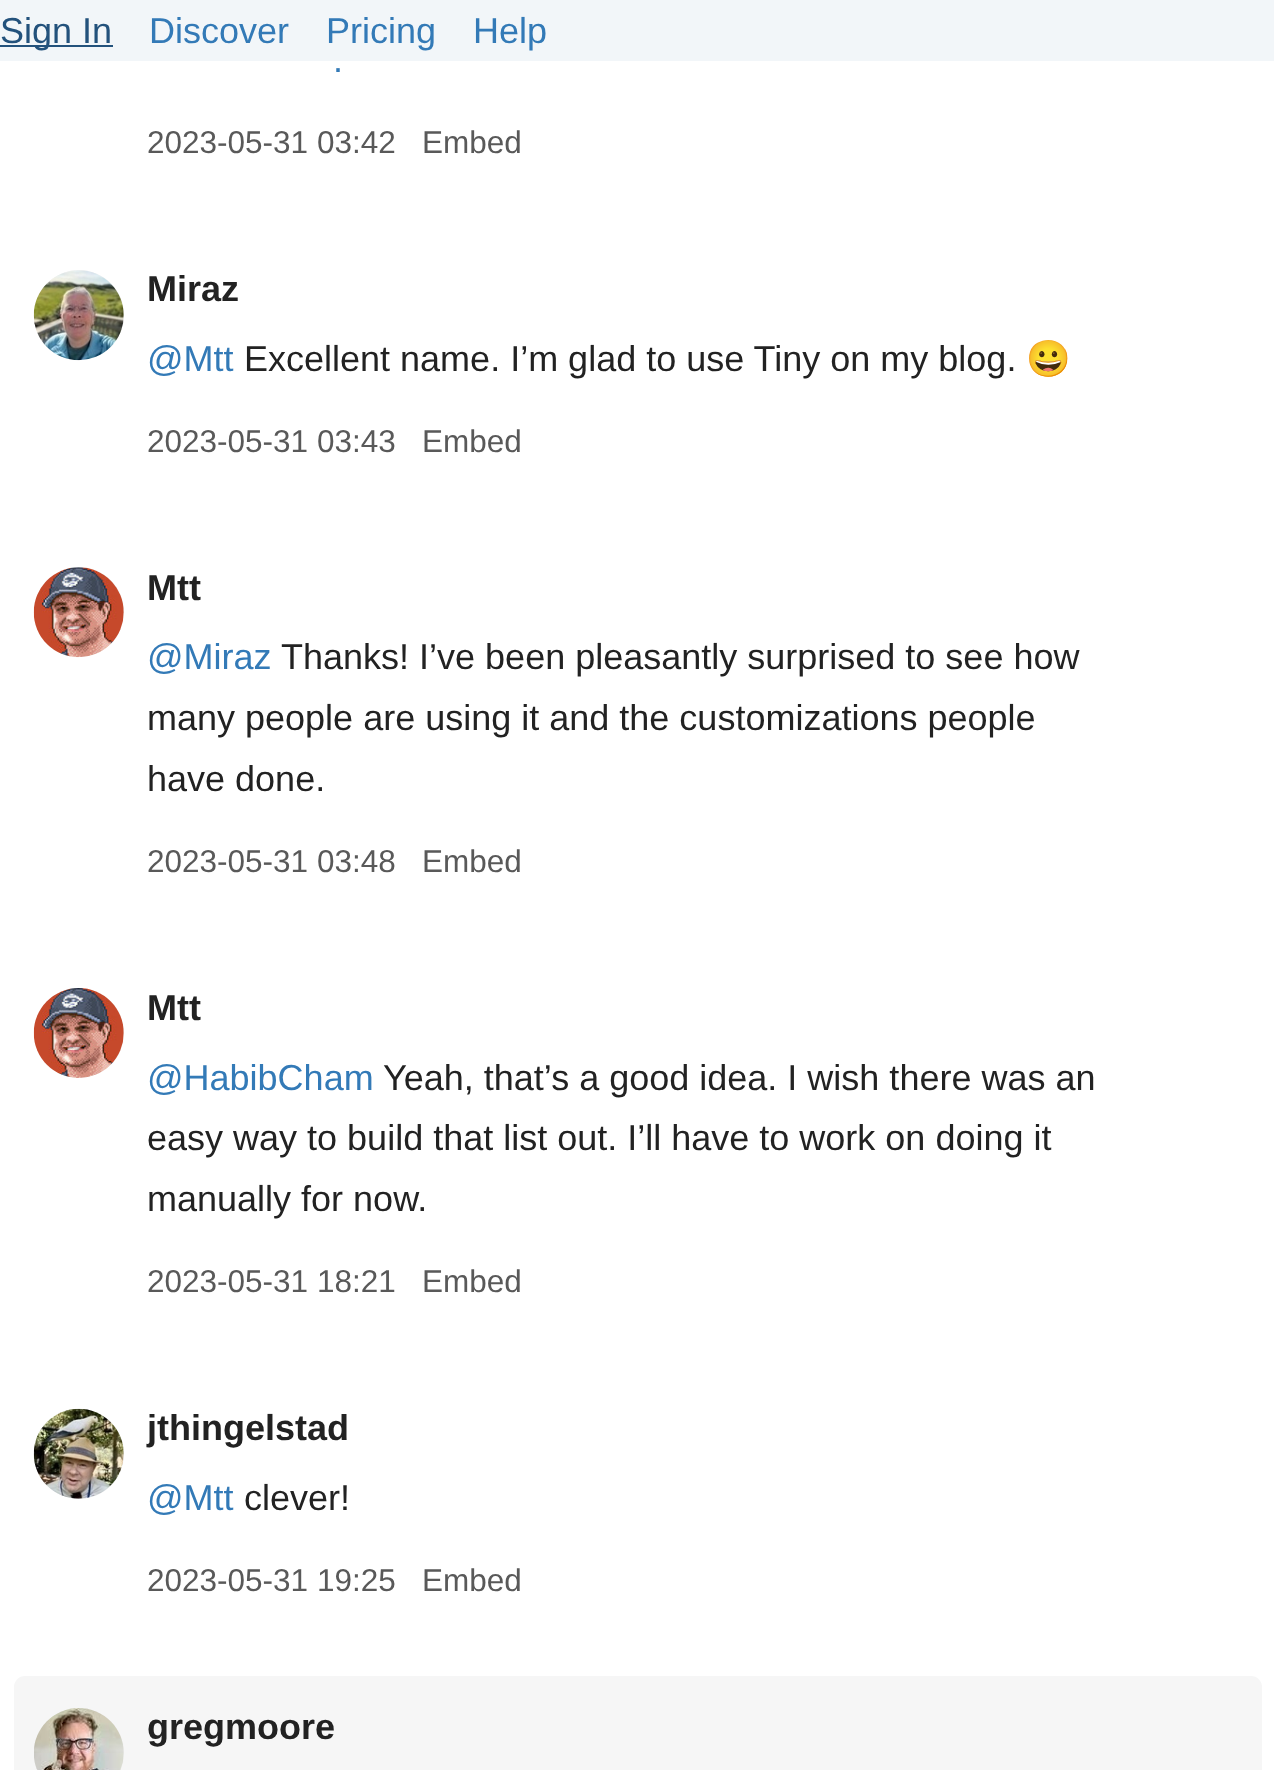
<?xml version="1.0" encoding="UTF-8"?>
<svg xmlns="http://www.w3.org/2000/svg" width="1274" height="1770">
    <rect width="100%" height="100%" fill="#FFFFFF"/>
    <rect x="0" y="0" width="1274" height="61" fill="#EDF2F7" fill-opacity="0.7"/>
    <rect x="0" y="45" width="113" height="2" fill="#23527C"/>
    <text x="0" y="43" font-family="Liberation Sans" font-size="36" fill="#23527C">Sign In</text>
    <text x="149" y="43" font-family="Liberation Sans" font-size="36" fill="#337AB7">Discover</text>
    <text x="326" y="43" font-family="Liberation Sans" font-size="36" fill="#337AB7">Pricing</text>
    <text x="473" y="43" font-family="Liberation Sans" font-size="36" fill="#337AB7">Help</text>
    <text x="333" y="72" font-family="Liberation Sans" font-size="36" fill="#337AB7">.</text>
    <text x="147" y="153" font-family="Liberation Sans" font-size="31.5" fill="#595959">2023-05-31 03:42</text>
    <text x="422" y="153" font-family="Liberation Sans" font-size="31.5" fill="#595959">Embed</text>
    <circle cx="79" cy="315" r="45" fill="#EFEFEF"/>
    <image x="33" y="270" width="91" height="91" href="img_01.png"/>
    <text x="147" y="301" font-family="Liberation Sans" font-size="36" font-weight="700" fill="#222222">Miraz</text>
    <text x="147" y="371" font-family="Liberation Sans" font-size="36" fill="#337AB7">@Mtt</text>
    <text x="244" y="371" font-family="Liberation Sans" font-size="36" fill="#222222">Excellent name. I’m glad to use Tiny on my blog.</text>
    <text x="1026" y="371" font-family="Noto Color Emoji" font-size="36" fill="#222222">😀</text>
    <text x="147" y="452" font-family="Liberation Sans" font-size="31.5" fill="#595959">2023-05-31 03:43</text>
    <text x="422" y="452" font-family="Liberation Sans" font-size="31.5" fill="#595959">Embed</text>
    <circle cx="79" cy="612" r="45" fill="#EFEFEF"/>
    <image x="33" y="567" width="91" height="91" href="img_02.png"/>
    <text x="147" y="600" font-family="Liberation Sans" font-size="36" font-weight="700" fill="#222222">Mtt</text>
    <text x="147" y="669" font-family="Liberation Sans" font-size="36" fill="#337AB7">@Miraz</text>
    <text x="281" y="669" font-family="Liberation Sans" font-size="36" fill="#222222">Thanks! I’ve been pleasantly surprised to see how</text>
    <text font-family="Liberation Sans" font-size="36" fill="#222222">
        <tspan x="147" y="730">many people are using it and the customizations people</tspan>
        <tspan x="147" y="791">have done.</tspan>
    </text>
    <text x="147" y="872" font-family="Liberation Sans" font-size="31.5" fill="#595959">2023-05-31 03:48</text>
    <text x="422" y="872" font-family="Liberation Sans" font-size="31.5" fill="#595959">Embed</text>
    <circle cx="79" cy="1033" r="45" fill="#EFEFEF"/>
    <image x="33" y="988" width="91" height="90" href="img_03.png"/>
    <text x="147" y="1020" font-family="Liberation Sans" font-size="36" font-weight="700" fill="#222222">Mtt</text>
    <text x="147" y="1090" font-family="Liberation Sans" font-size="36" fill="#337AB7">@HabibCham</text>
    <text x="383" y="1090" font-family="Liberation Sans" font-size="36" fill="#222222">Yeah, that’s a good idea. I wish there was an</text>
    <text font-family="Liberation Sans" font-size="36" fill="#222222">
        <tspan x="147" y="1150">easy way to build that list out. I’ll have to work on doing it</tspan>
        <tspan x="147" y="1211">manually for now.</tspan>
    </text>
    <text x="147" y="1292" font-family="Liberation Sans" font-size="31.5" fill="#595959">2023-05-31 18:21</text>
    <text x="422" y="1292" font-family="Liberation Sans" font-size="31.5" fill="#595959">Embed</text>
    <circle cx="79" cy="1454" r="45" fill="#EFEFEF"/>
    <image x="33" y="1408" width="91" height="91" href="img_04.png"/>
    <text x="147" y="1440" font-family="Liberation Sans" font-size="36" font-weight="700" fill="#222222">jthingelstad</text>
    <text x="147" y="1510" font-family="Liberation Sans" font-size="36" fill="#337AB7">@Mtt</text>
    <text x="244" y="1510" font-family="Liberation Sans" font-size="36" fill="#222222">clever!</text>
    <text x="147" y="1591" font-family="Liberation Sans" font-size="31.5" fill="#595959">2023-05-31 19:25</text>
    <text x="422" y="1591" font-family="Liberation Sans" font-size="31.5" fill="#595959">Embed</text>
    <rect x="14" y="1676" width="1248" height="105" rx="11" fill="#F6F6F6"/>
    <circle cx="79" cy="1753" r="45" fill="#EFEFEF"/>
    <image x="34" y="1708" width="90" height="62" href="img_05.png"/>
    <text x="147" y="1739" font-family="Liberation Sans" font-size="36" font-weight="700" fill="#222222">gregmoore</text>
</svg>
